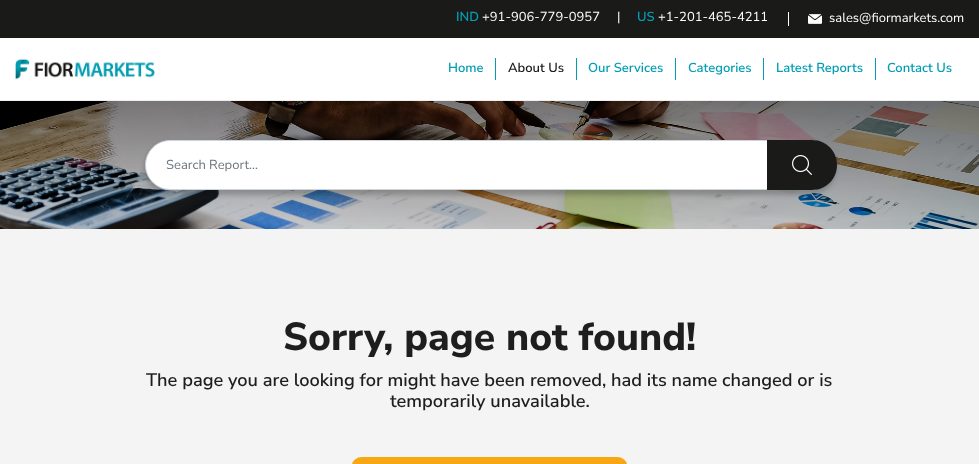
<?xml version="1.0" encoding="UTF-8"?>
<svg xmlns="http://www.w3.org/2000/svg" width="979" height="464">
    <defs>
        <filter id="blur1" x="-50%" y="-200%" width="200%" height="500%"><feGaussianBlur stdDeviation="2.5"/></filter>
    </defs>
    <rect width="100%" height="100%" fill="#FFFFFF"/>
    <rect x="0" y="100" width="979" height="1" fill="#EEEEEE"/>
    <rect x="0" y="0" width="979" height="38" fill="#1A1A18"/>
    <rect x="788" y="12" width="1" height="14" fill="#FFFFFF"/>
    <text x="456" y="21" font-family="Nunito Sans" font-size="13" font-weight="600" fill="#039EB4">IND</text>
    <text x="482" y="21" font-family="Nunito Sans" font-size="13" fill="#FFFFFF">+91-906-779-0957</text>
    <text x="617" y="21" font-family="Nunito Sans" font-size="13" fill="#FFFFFF">|</text>
    <text x="637" y="21" font-family="Nunito Sans" font-size="13" font-weight="600" fill="#039EB4">US</text>
    <text x="658" y="21" font-family="Nunito Sans" font-size="13" fill="#FFFFFF">+1-201-465-4211</text>
    <image x="808" y="14" width="14" height="10" href="img_01.png"/>
    <text x="829" y="22" font-family="Nunito Sans" font-size="13" fill="#FFFFFF">sales@fiormarkets.com</text>
    <image x="15" y="58" width="140" height="22" href="img_02.png"/>
    <rect x="495" y="58" width="1" height="22" fill="#039EB4"/>
    <text x="448" y="72" font-family="Nunito Sans" font-size="13" font-weight="600" fill="#039EB4">Home</text>
    <rect x="576" y="58" width="1" height="22" fill="#039EB4"/>
    <text x="508" y="72" font-family="Nunito Sans" font-size="13" font-weight="600" fill="#1A1A18">About Us</text>
    <rect x="675" y="58" width="1" height="22" fill="#039EB4"/>
    <text x="588" y="72" font-family="Nunito Sans" font-size="13" font-weight="600" fill="#039EB4">Our Services</text>
    <rect x="763" y="58" width="1" height="22" fill="#039EB4"/>
    <text x="688" y="72" font-family="Nunito Sans" font-size="13" font-weight="600" fill="#039EB4">Categories</text>
    <rect x="875" y="58" width="1" height="22" fill="#039EB4"/>
    <text x="776" y="72" font-family="Nunito Sans" font-size="13" font-weight="600" fill="#039EB4">Latest Reports</text>
    <text x="887" y="72" font-family="Nunito Sans" font-size="13" font-weight="600" fill="#039EB4">Contact Us</text>
    <image x="0" y="101" width="979" height="128" href="img_03.png"/>
    <rect x="144" y="143" width="692" height="52" rx="26" fill="#000000" fill-opacity="0.2" filter="url(#blur1)"/>
    <rect x="145.5" y="140.5" width="689" height="49" rx="24.5" fill="#FFFFFF" stroke="#CED4DA"/>
    <text x="166" y="169" font-family="Nunito Sans" font-size="13" fill="#6C757D">Search Report...</text>
    <path d="M 767 140 H 812 C 826 140 837 151 837 165 C 837 179 826 190 812 190 H 767 Z" fill="#1A1A18"/>
    <image x="792" y="155" width="20" height="20" href="img_04.png"/>
    <rect x="0" y="229" width="979" height="235" fill="#F4F4F4"/>
    <text x="283" y="350" font-family="Nunito Sans" font-size="39" font-weight="800" fill="#1E1E1E">Sorry, page not found!</text>
    <text x="146" y="386" font-family="Nunito Sans" font-size="18.2" font-weight="600" fill="#1E1E1E">The page you are looking for might have been removed, had its name changed or is</text>
    <text x="390" y="407" font-family="Nunito Sans" font-size="18.2" font-weight="600" fill="#1E1E1E">temporarily unavailable.</text>
    <rect x="352" y="457" width="275" height="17" rx="10" fill="#F8A714"/>
</svg>
